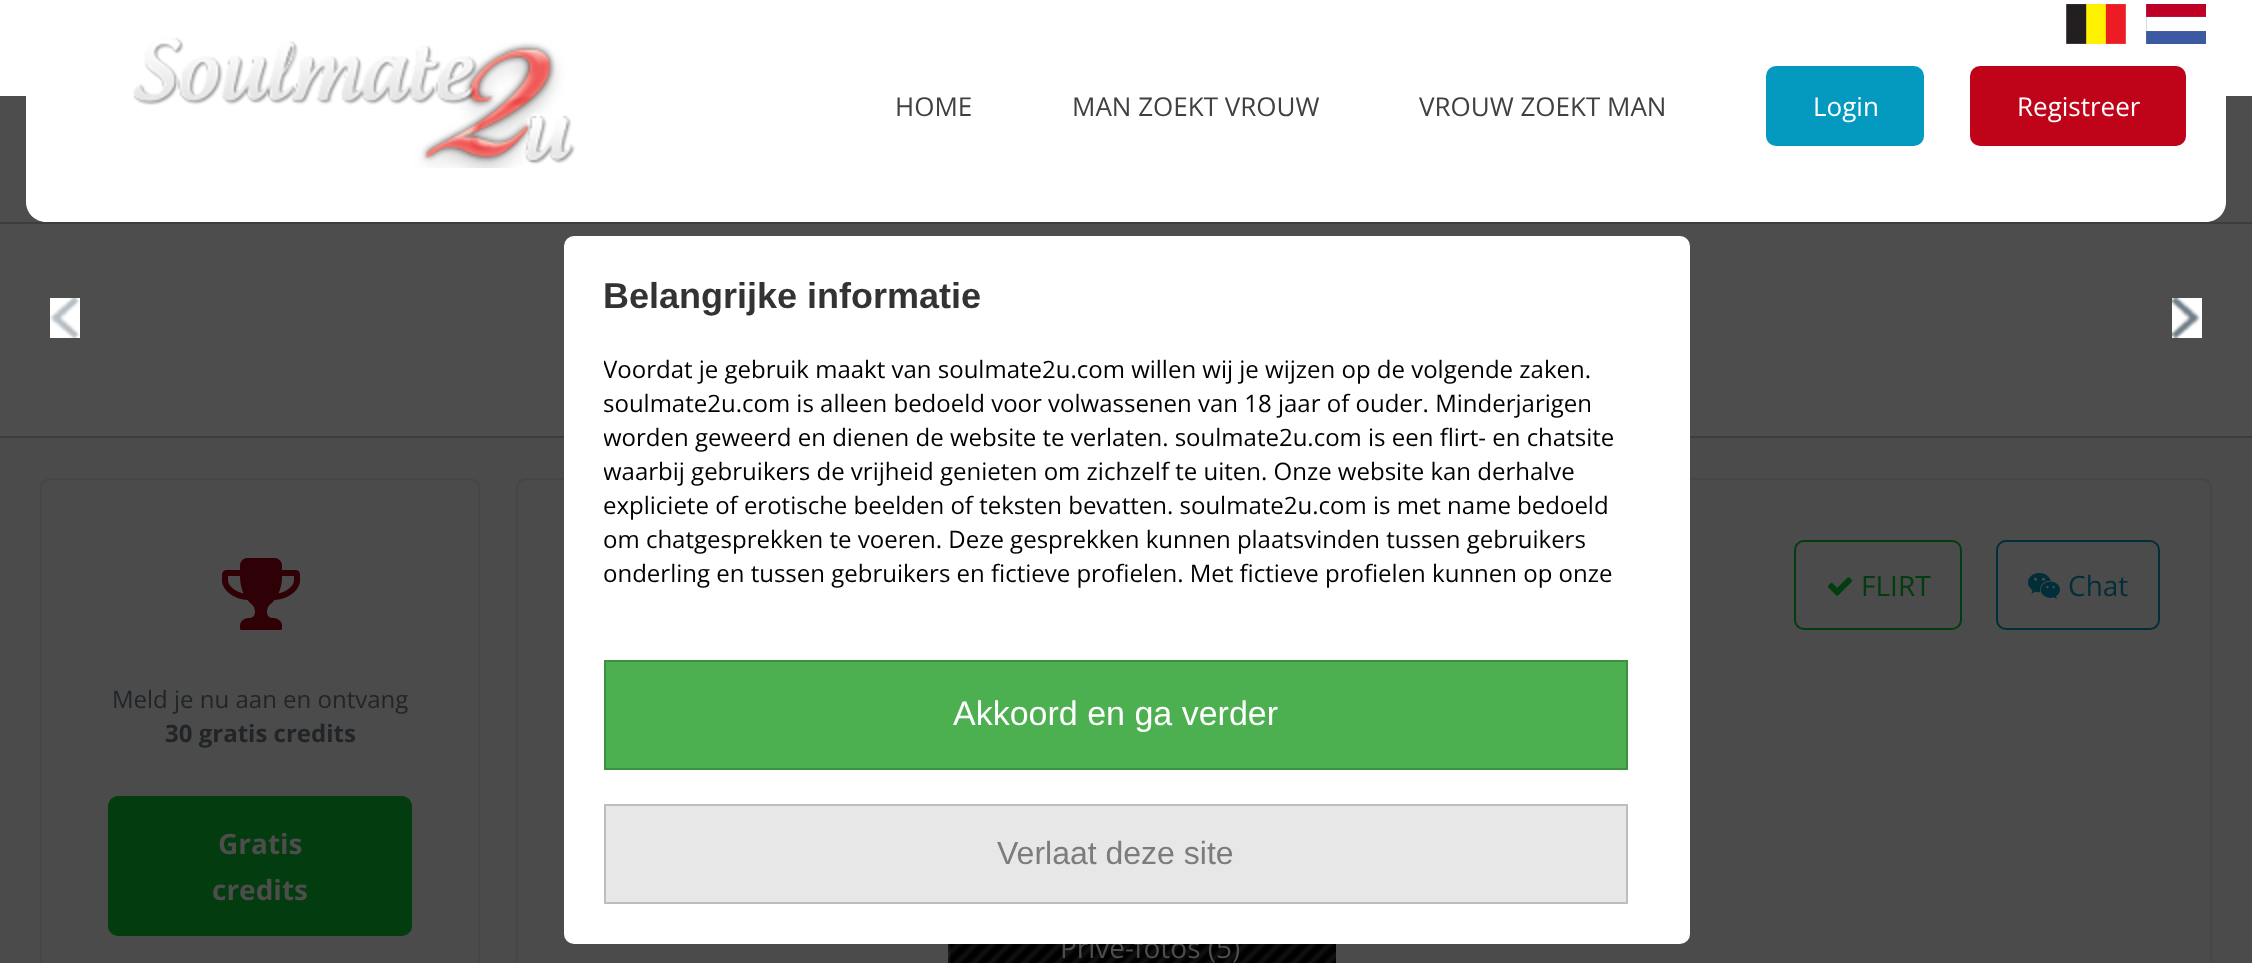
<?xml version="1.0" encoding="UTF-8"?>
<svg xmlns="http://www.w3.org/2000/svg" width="2252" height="963">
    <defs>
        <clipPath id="clip1"><rect x="604" y="318" width="1046" height="274"/></clipPath>
    </defs>
    <rect width="100%" height="100%" fill="#FFFFFF"/>
    <rect x="0" y="96" width="2252" height="340" fill="#4D4D4D"/>
    <path d="M 26 0 H 2226 V 202 C 2226 213 2217 222 2206 222 H 46 C 35 222 26 213 26 202 Z" fill="#FFFFFF"/>
    <image x="2066" y="4" width="60" height="40" href="img_01.png"/>
    <image x="2146" y="4" width="60" height="40" href="img_02.png"/>
    <image x="133" y="37" width="442" height="131" href="img_03.png"/>
    <text x="895" y="116" font-family="Open Sans" font-size="26" fill="#404040">HOME</text>
    <text x="1072" y="116" font-family="Open Sans" font-size="26" fill="#404040">MAN ZOEKT VROUW</text>
    <text x="1419" y="116" font-family="Open Sans" font-size="26" fill="#404040">VROUW ZOEKT MAN</text>
    <rect x="1766" y="66" width="158" height="80" rx="10" fill="#0499BF"/>
    <text x="1813" y="116" font-family="Open Sans" font-size="26" fill="#FFFFFF">Login</text>
    <rect x="1970" y="66" width="216" height="80" rx="10" fill="#BF041A"/>
    <text x="2017" y="116" font-family="Open Sans" font-size="26" fill="#FFFFFF">Registreer</text>
    <rect x="0" y="222" width="2252" height="2" fill="#3D3D3D"/>
    <rect x="0" y="436" width="2252" height="2" fill="#3D3D3D"/>
    <image x="50" y="298" width="30" height="40" href="img_04.png"/>
    <image x="2172" y="298" width="30" height="40" href="img_05.png"/>
    <rect x="0" y="438" width="2252" height="525" fill="#4B4B4B"/>
    <rect x="41" y="479" width="438" height="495" rx="9" fill="none" stroke="#464646" stroke-width="2"/>
    <image x="222" y="558" width="78" height="72" href="img_06.png"/>
    <text x="112" y="708" font-family="Open Sans" font-size="24" fill="#212528">Meld je nu aan en ontvang</text>
    <text x="165" y="742" font-family="Open Sans" font-size="24" font-weight="700" fill="#212528">30 gratis credits</text>
    <rect x="108" y="796" width="304" height="140" rx="10" fill="#033C0E"/>
    <text x="218" y="854" font-family="Open Sans" font-size="28" font-weight="700" fill="#4D4D4D">Gratis</text>
    <text x="212" y="900" font-family="Open Sans" font-size="28" font-weight="700" fill="#4D4D4D">credits</text>
    <rect x="517" y="479" width="1694" height="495" rx="9" fill="none" stroke="#464646" stroke-width="2"/>
    <rect x="1795" y="541" width="166" height="88" rx="9" fill="none" stroke="#033C0E" stroke-width="2"/>
    <image x="1827" y="577" width="26" height="19" href="img_07.png"/>
    <text x="1861" y="596" font-family="Open Sans" font-size="28" fill="#033C0E">FLIRT</text>
    <rect x="1997" y="541" width="162" height="88" rx="9" fill="none" stroke="#012E39" stroke-width="2"/>
    <image x="2028" y="573" width="32" height="26" href="img_08.png"/>
    <text x="2068" y="596" font-family="Open Sans" font-size="28" fill="#012E39">Chat</text>
    <image x="948" y="944" width="388" height="19" href="img_09.png"/>
    <text x="1060" y="958" font-family="Open Sans" font-size="28" fill="#4D4D4D">Privé-fotos (5)</text>
    <rect x="564" y="236" width="1126" height="708" rx="10" fill="#FFFFFF"/>
    <text x="603" y="308" font-family="Liberation Sans" font-size="36" font-weight="700" fill="#333333">Belangrijke informatie</text>
    <g clip-path="url(#clip1)">
        <text x="603" y="378" font-family="Open Sans" font-size="24" fill="#000000">Voordat je gebruik maakt van soulmate2u.com willen wij je wijzen op de volgende zaken.</text>
    </g>
    <text x="603" y="412" font-family="Open Sans" font-size="24" fill="#000000">soulmate2u.com is alleen bedoeld voor volwassenen van 18 jaar of ouder. Minderjarigen</text>
    <g clip-path="url(#clip1)">
        <text font-family="Open Sans" font-size="24" fill="#000000">
            <tspan x="603" y="446">worden geweerd en dienen de website te verlaten. soulmate2u.com is een flirt- en chatsite</tspan>
            <tspan x="603" y="480">waarbij gebruikers de vrijheid genieten om zichzelf te uiten. Onze website kan derhalve</tspan>
        </text>
    </g>
    <text font-family="Open Sans" font-size="24" fill="#000000">
        <tspan x="603" y="514">expliciete of erotische beelden of teksten bevatten. soulmate2u.com is met name bedoeld</tspan>
        <tspan x="603" y="548">om chatgesprekken te voeren. Deze gesprekken kunnen plaatsvinden tussen gebruikers</tspan>
        <tspan x="603" y="582">onderling en tussen gebruikers en fictieve profielen. Met fictieve profielen kunnen op onze</tspan>
    </text>
    <rect x="605" y="661" width="1022" height="108" fill="#4CAF50" stroke="#3E9042" stroke-width="2"/>
    <text x="953" y="725" font-family="Liberation Sans" font-size="34" fill="#FFFFFF">Akkoord en ga verder</text>
    <rect x="605" y="805" width="1022" height="98" fill="#E7E7E7" stroke="#BDBDBD" stroke-width="2"/>
    <text x="997" y="864" font-family="Liberation Sans" font-size="32" fill="#7D7B7B">Verlaat deze site</text>
</svg>
